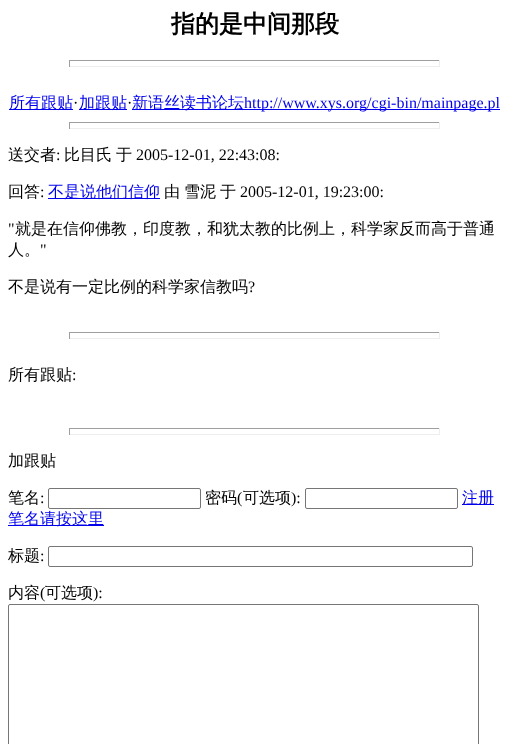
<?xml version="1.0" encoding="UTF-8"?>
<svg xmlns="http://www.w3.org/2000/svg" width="509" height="744">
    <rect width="100%" height="100%" fill="#FFFFFF"/>
    <text x="171" y="32" font-family="WenQuanYi Zen Hei" font-size="24" font-weight="700" fill="#000000">指的是中间那段</text>
    <rect x="69" y="60" width="371" height="1" fill="#9F9F9F"/>
    <rect x="439" y="60" width="1" height="7" fill="#EEEEEE"/>
    <rect x="69" y="66" width="371" height="1" fill="#EEEEEE"/>
    <rect x="69" y="60" width="1" height="7" fill="#9F9F9F"/>
    <rect x="9" y="109" width="64" height="1" fill="#0000EE"/>
    <text x="9" y="108" font-family="WenQuanYi Zen Hei" font-size="16" font-weight="500" fill="#0000EE">所有跟贴</text>
    <text x="73" y="108" font-family="Liberation Serif" font-size="16" fill="#000000">·</text>
    <rect x="79" y="109" width="48" height="1" fill="#0000EE"/>
    <text x="79" y="108" font-family="WenQuanYi Zen Hei" font-size="16" font-weight="500" fill="#0000EE">加跟贴</text>
    <text x="127" y="108" font-family="Liberation Serif" font-size="16" fill="#000000">·</text>
    <rect x="132" y="109" width="368" height="1" fill="#0000EE"/>
    <text x="132" y="108" font-family="WenQuanYi Zen Hei" font-size="16" font-weight="500" fill="#0000EE">新语丝读书论坛</text>
    <text x="244" y="108" font-family="Liberation Serif" font-size="16" fill="#0000EE">http://www.xys.org/cgi-bin/mainpage.pl</text>
    <rect x="69" y="122" width="371" height="1" fill="#9F9F9F"/>
    <rect x="439" y="122" width="1" height="7" fill="#EEEEEE"/>
    <rect x="69" y="128" width="371" height="1" fill="#EEEEEE"/>
    <rect x="69" y="122" width="1" height="7" fill="#9F9F9F"/>
    <text x="8" y="160" font-family="WenQuanYi Zen Hei" font-size="16" font-weight="500" fill="#000000">送交者</text>
    <text x="56" y="160" font-family="Liberation Serif" font-size="16" fill="#000000">:</text>
    <text x="64" y="160" font-family="WenQuanYi Zen Hei" font-size="16" font-weight="500" fill="#000000">比目氏</text>
    <text x="116" y="160" font-family="WenQuanYi Zen Hei" font-size="16" font-weight="500" fill="#000000">于</text>
    <text x="136" y="160" font-family="Liberation Serif" font-size="16" fill="#000000">2005-12-01, 22:43:08:</text>
    <text x="8" y="197" font-family="WenQuanYi Zen Hei" font-size="16" font-weight="500" fill="#000000">回答</text>
    <text x="40" y="197" font-family="Liberation Serif" font-size="16" fill="#000000">:</text>
    <rect x="48" y="198" width="112" height="1" fill="#0000EE"/>
    <text x="48" y="197" font-family="WenQuanYi Zen Hei" font-size="16" font-weight="500" fill="#0000EE">不是说他们信仰</text>
    <text x="164" y="197" font-family="WenQuanYi Zen Hei" font-size="16" font-weight="500" fill="#000000">由</text>
    <text x="184" y="197" font-family="WenQuanYi Zen Hei" font-size="16" font-weight="500" fill="#000000">雪泥</text>
    <text x="220" y="197" font-family="WenQuanYi Zen Hei" font-size="16" font-weight="500" fill="#000000">于</text>
    <text x="240" y="197" font-family="Liberation Serif" font-size="16" fill="#000000">2005-12-01, 19:23:00:</text>
    <text x="8" y="234" font-family="Liberation Serif" font-size="16" fill="#000000">"</text>
    <text x="15" y="234" font-family="WenQuanYi Zen Hei" font-size="16" font-weight="500" fill="#000000">就是在信仰佛教，印度教，和犹太教的比例上，科学家反而高于普通</text>
    <text x="8" y="255" font-family="WenQuanYi Zen Hei" font-size="16" font-weight="500" fill="#000000">人。</text>
    <text x="40" y="255" font-family="Liberation Serif" font-size="16" fill="#000000">"</text>
    <text x="8" y="292" font-family="WenQuanYi Zen Hei" font-size="16" font-weight="500" fill="#000000">不是说有一定比例的科学家信教吗</text>
    <text x="248" y="292" font-family="Liberation Serif" font-size="16" fill="#000000">?</text>
    <rect x="69" y="332" width="371" height="1" fill="#9F9F9F"/>
    <rect x="439" y="332" width="1" height="7" fill="#EEEEEE"/>
    <rect x="69" y="338" width="371" height="1" fill="#EEEEEE"/>
    <rect x="69" y="332" width="1" height="7" fill="#9F9F9F"/>
    <text x="8" y="380" font-family="WenQuanYi Zen Hei" font-size="16" font-weight="500" fill="#000000">所有跟贴</text>
    <text x="72" y="380" font-family="Liberation Serif" font-size="16" fill="#000000">:</text>
    <rect x="69" y="428" width="371" height="1" fill="#9F9F9F"/>
    <rect x="439" y="428" width="1" height="7" fill="#EEEEEE"/>
    <rect x="69" y="434" width="371" height="1" fill="#EEEEEE"/>
    <rect x="69" y="428" width="1" height="7" fill="#9F9F9F"/>
    <text x="8" y="466" font-family="WenQuanYi Zen Hei" font-size="16" font-weight="500" fill="#000000">加跟贴</text>
    <text x="8" y="503" font-family="WenQuanYi Zen Hei" font-size="16" font-weight="500" fill="#000000">笔名</text>
    <text x="40" y="503" font-family="Liberation Serif" font-size="16" fill="#000000">:</text>
    <rect x="48.5" y="488.5" width="152" height="20" rx="1.5" fill="none" stroke="#767676"/>
    <text x="205" y="503" font-family="WenQuanYi Zen Hei" font-size="16" font-weight="500" fill="#000000">密码</text>
    <text x="237" y="503" font-family="Liberation Serif" font-size="16" fill="#000000">(</text>
    <text x="243" y="503" font-family="WenQuanYi Zen Hei" font-size="16" font-weight="500" fill="#000000">可选项</text>
    <text x="291" y="503" font-family="Liberation Serif" font-size="16" fill="#000000">):</text>
    <rect x="305.5" y="488.5" width="152" height="20" rx="1.5" fill="none" stroke="#767676"/>
    <rect x="462" y="504" width="32" height="1" fill="#0000EE"/>
    <text x="462" y="503" font-family="WenQuanYi Zen Hei" font-size="16" font-weight="500" fill="#0000EE">注册</text>
    <rect x="8" y="525" width="96" height="1" fill="#0000EE"/>
    <text x="8" y="524" font-family="WenQuanYi Zen Hei" font-size="16" font-weight="500" fill="#0000EE">笔名请按这里</text>
    <text x="8" y="561" font-family="WenQuanYi Zen Hei" font-size="16" font-weight="500" fill="#000000">标题</text>
    <text x="40" y="561" font-family="Liberation Serif" font-size="16" fill="#000000">:</text>
    <rect x="48.5" y="546.5" width="424" height="20" rx="1.5" fill="none" stroke="#767676"/>
    <text x="8" y="598" font-family="WenQuanYi Zen Hei" font-size="16" font-weight="500" fill="#000000">内容</text>
    <text x="40" y="598" font-family="Liberation Serif" font-size="16" fill="#000000">(</text>
    <text x="45" y="598" font-family="WenQuanYi Zen Hei" font-size="16" font-weight="500" fill="#000000">可选项</text>
    <text x="93" y="598" font-family="Liberation Serif" font-size="16" fill="#000000">):</text>
    <rect x="8.5" y="604.5" width="470" height="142" rx="1.5" fill="none" stroke="#767676"/>
</svg>
